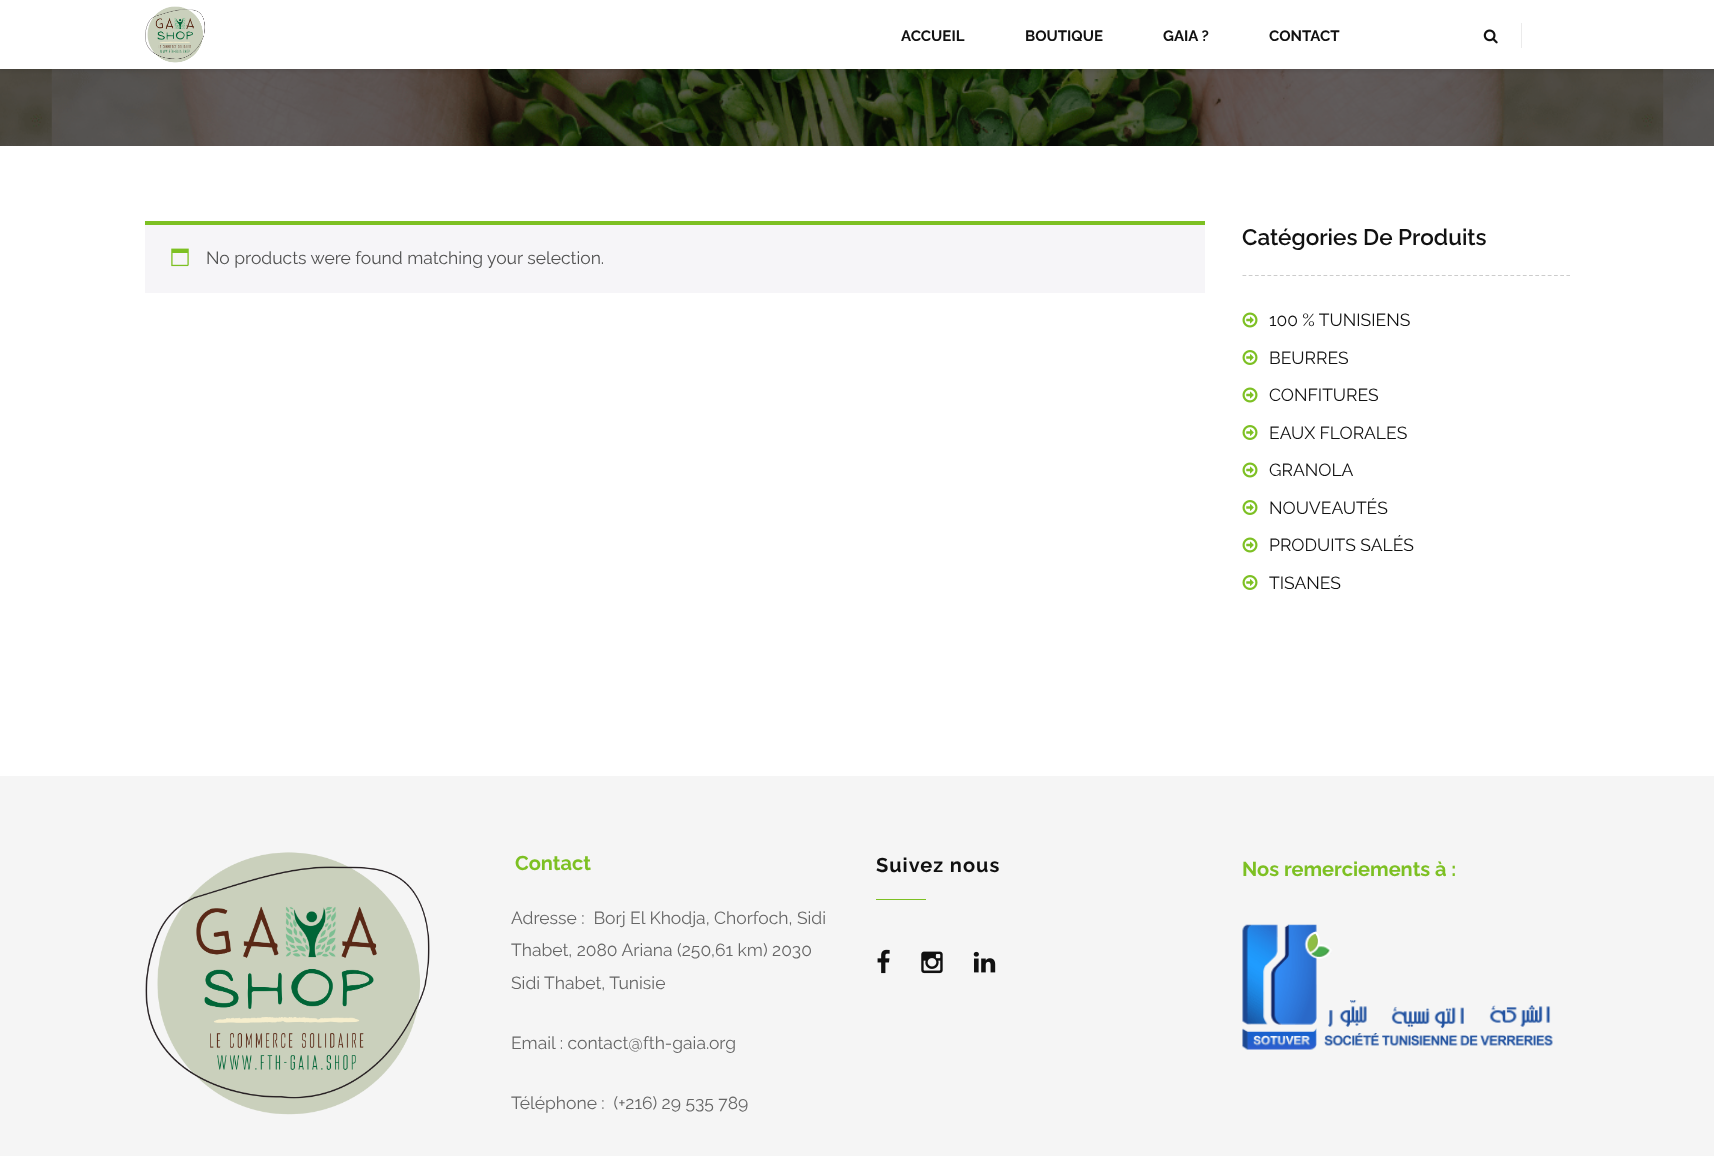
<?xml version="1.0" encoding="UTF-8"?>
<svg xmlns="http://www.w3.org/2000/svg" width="1714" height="1156">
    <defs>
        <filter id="blur1" x="-50%" y="-200%" width="200%" height="500%"><feGaussianBlur stdDeviation="2"/></filter>
    </defs>
    <rect width="100%" height="100%" fill="#FFFFFF"/>
    <image x="0" y="69" width="1714" height="77" href="img_03.png"/>
    <rect x="-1" y="-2" width="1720" height="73" fill="#000000" fill-opacity="0.1" filter="url(#blur1)"/>
    <rect x="0" y="0" width="1714" height="69" fill="#FFFFFF"/>
    <image x="145" y="6" width="60" height="57" href="img_01.png"/>
    <text x="901" y="41" font-family="Raleway" font-size="15" font-weight="700" fill="#111111">ACCUEIL</text>
    <text x="1025" y="41" font-family="Raleway" font-size="15" font-weight="700" fill="#111111">BOUTIQUE</text>
    <text x="1163" y="41" font-family="Raleway" font-size="15" font-weight="700" fill="#111111">GAIA ?</text>
    <text x="1269" y="41" font-family="Raleway" font-size="15" font-weight="700" fill="#111111">CONTACT</text>
    <image x="1483" y="29" width="15" height="15" href="img_02.png"/>
    <rect x="1521" y="23" width="1" height="25" fill="#EBEBEB"/>
    <rect x="145" y="225" width="1060" height="68" fill="#F6F5F8"/>
    <rect x="145" y="221" width="1060" height="4" fill="#7DC023"/>
    <image x="171" y="248" width="18" height="19" href="img_04.png"/>
    <text x="206" y="264" font-family="Raleway" font-size="17.5" fill="#515151">No products were found matching your selection.</text>
    <path d="M 1242.5 275.5 H 1570" fill="none" stroke="#CCCCCC" stroke-width="1.2" stroke-dasharray="3.75 2.48"/>
    <text x="1242" y="245" font-family="Raleway" font-size="22.5" font-weight="600" fill="#111111">Catégories De Produits</text>
    <image x="1242" y="312" width="16" height="16" href="img_05.png"/>
    <text x="1269" y="326" font-family="Raleway" font-size="17.5" fill="#111111">100 % TUNISIENS</text>
    <image x="1242" y="350" width="16" height="15" href="img_06.png"/>
    <text x="1269" y="364" font-family="Raleway" font-size="17.5" fill="#111111">BEURRES</text>
    <image x="1242" y="387" width="16" height="16" href="img_05.png"/>
    <text x="1269" y="401" font-family="Raleway" font-size="17.5" fill="#111111">CONFITURES</text>
    <image x="1242" y="425" width="16" height="15" href="img_06.png"/>
    <text x="1269" y="439" font-family="Raleway" font-size="17.5" fill="#111111">EAUX FLORALES</text>
    <image x="1242" y="462" width="16" height="16" href="img_05.png"/>
    <text x="1269" y="476" font-family="Raleway" font-size="17.5" fill="#111111">GRANOLA</text>
    <image x="1242" y="500" width="16" height="15" href="img_06.png"/>
    <text x="1269" y="514" font-family="Raleway" font-size="17.5" fill="#111111">NOUVEAUTÉS</text>
    <image x="1242" y="537" width="16" height="16" href="img_05.png"/>
    <text x="1269" y="551" font-family="Raleway" font-size="17.5" fill="#111111">PRODUITS SALÉS</text>
    <image x="1242" y="575" width="16" height="15" href="img_06.png"/>
    <text x="1269" y="589" font-family="Raleway" font-size="17.5" fill="#111111">TISANES</text>
    <rect x="0" y="776" width="1714" height="380" fill="#F5F5F5"/>
    <image x="145" y="852" width="285" height="263" href="img_07.png"/>
    <text x="515" y="870" font-family="Raleway" font-size="20" font-weight="700" fill="#7DC023">Contact</text>
    <text font-family="Raleway" font-size="17.5" fill="#666666" xml:space="preserve"><tspan x="511" y="924">Adresse :  Borj El Khodja, Chorfoch, Sidi</tspan><tspan x="511" y="956">Thabet, 2080 Ariana (250,61 km) 2030</tspan><tspan x="511" y="989">Sidi Thabet, Tunisie</tspan></text>
    <text x="511" y="1049" font-family="Raleway" font-size="17.5" fill="#666666">Email : contact@fth-gaia.org</text>
    <text x="511" y="1109" font-family="Raleway" font-size="17.5" fill="#666666" xml:space="preserve">Téléphone :  (+216) 29 535 789</text>
    <text x="876" y="872" font-family="Raleway" font-size="20" font-weight="700" letter-spacing="1" fill="#111111">Suivez nous</text>
    <rect x="876" y="899" width="50" height="1" fill="#7DC023"/>
    <image x="877" y="949" width="13" height="25" href="img_08.png"/>
    <image x="921" y="951" width="22" height="23" href="img_09.png"/>
    <image x="973" y="951" width="23" height="22" href="img_10.png"/>
    <text x="1242" y="876" font-family="Raleway" font-size="20" font-weight="700" fill="#7DC023">Nos remerciements à :</text>
    <image x="1242" y="924" width="311" height="126" href="img_11.png"/>
</svg>
